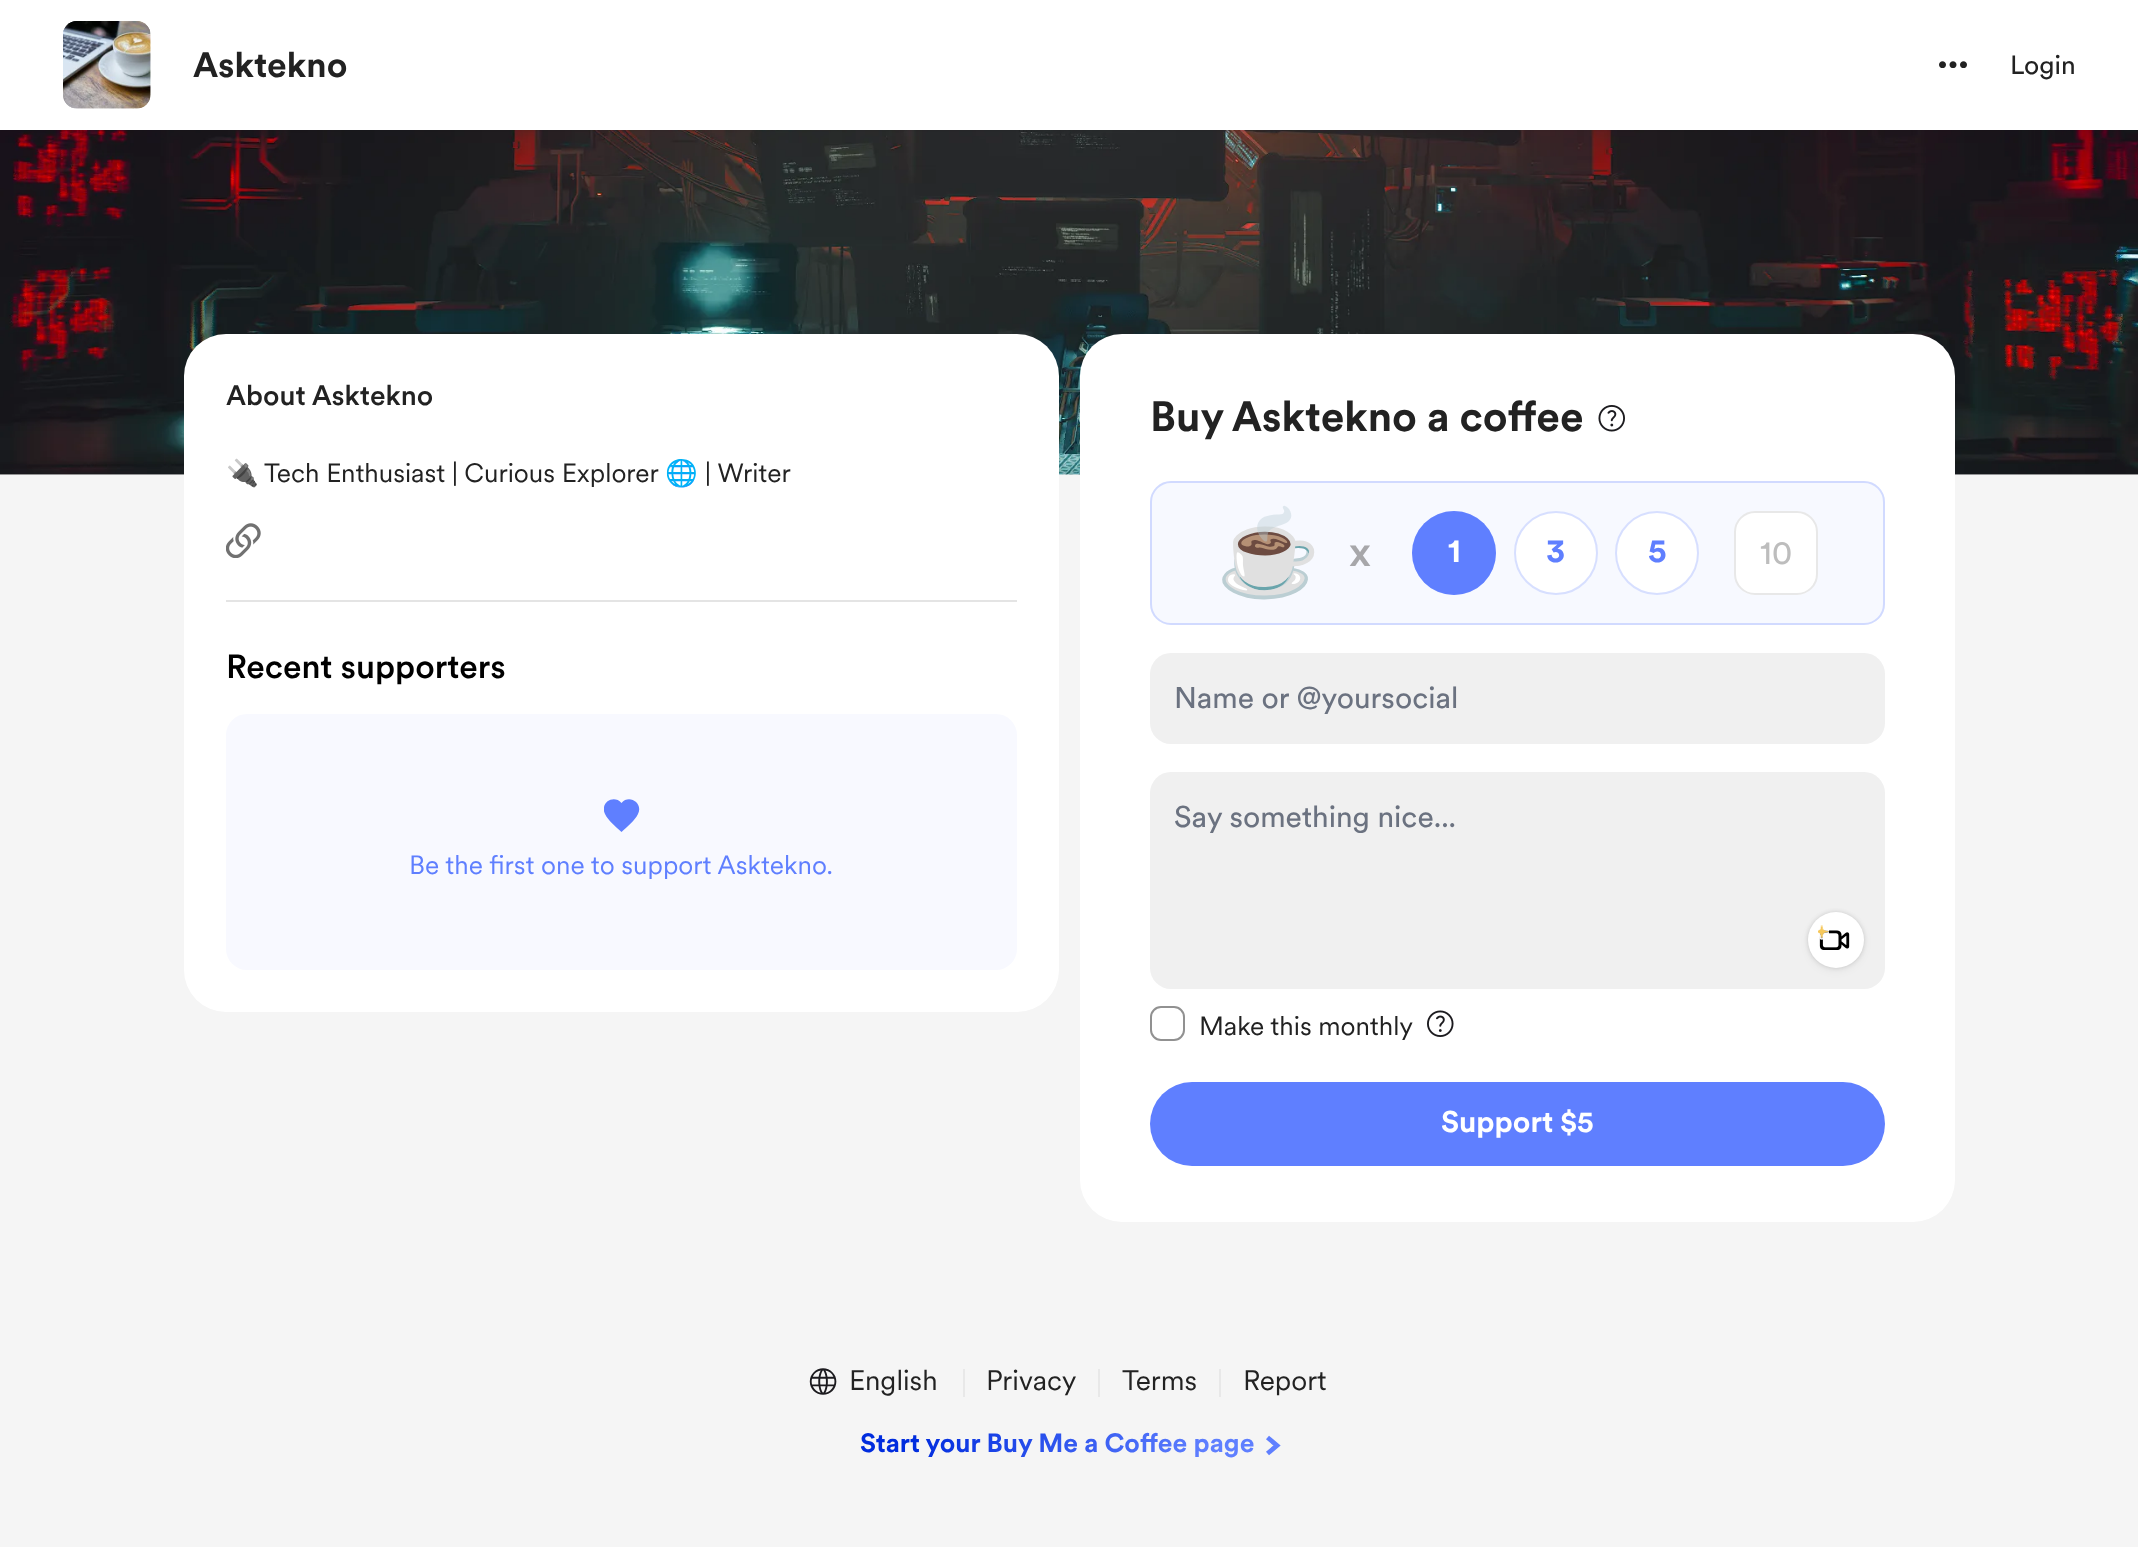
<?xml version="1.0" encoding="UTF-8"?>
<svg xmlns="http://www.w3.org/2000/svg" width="2138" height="1547">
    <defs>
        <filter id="blur1" x="-50%" y="-200%" width="200%" height="500%"><feGaussianBlur stdDeviation="1"/></filter>
        <clipPath id="clip1"><rect x="604" y="798" width="37" height="35"/></clipPath>
        <linearGradient id="g1" gradientUnits="userSpaceOnUse" x1="885" y1="1365" x2="1254" y2="1522"><stop offset="0.14" stop-color="#002CDE"/><stop offset="0.82" stop-color="#5F7FFF"/></linearGradient>
        <filter id="blur2" x="-50%" y="-200%" width="200%" height="500%"><feGaussianBlur stdDeviation="4.5"/></filter>
        <filter id="blur3" x="-50%" y="-200%" width="200%" height="500%"><feGaussianBlur stdDeviation="2"/></filter>
    </defs>
    <rect width="100%" height="100%" fill="#F5F5F5"/>
    <image x="0" y="130" width="2138" height="345" href="img_04.png"/>
    <rect x="0" y="2" width="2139" height="129" fill="#000000" fill-opacity="0.06" filter="url(#blur1)"/>
    <rect x="0" y="0" width="2138" height="130" fill="#FFFFFF"/>
    <image x="63" y="21" width="88" height="88" href="img_01.png"/>
    <image x="63" y="21" width="88" height="88" href="img_02.png"/>
    <text x="193" y="77" font-family="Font" font-size="35" font-weight="700" fill="#222222">Asktekno</text>
    <image x="1939" y="61" width="28" height="7" href="img_03.png"/>
    <text x="2010" y="74" font-family="'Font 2'" font-size="26.25" fill="#222222">Login</text>
    <image x="0" y="474" width="2138" height="1" href="img_05.png"/>
    <rect x="184" y="334" width="875" height="678" rx="42" fill="#FFFFFF"/>
    <rect x="226" y="600" width="791" height="2" fill="#E4E4E4"/>
    <text x="226" y="405" font-family="Font" font-size="28" font-weight="500" fill="#222222">About Asktekno</text>
    <text x="226" y="482" font-family="Noto Color Emoji" font-size="26.25" fill="#222222">🔌</text>
    <text x="264" y="482" font-family="Font" font-size="26.25" fill="#222222">Tech Enthusiast | Curious Explorer</text>
    <text x="665" y="482" font-family="Noto Color Emoji" font-size="26.25" fill="#222222">🌐</text>
    <text x="705" y="482" font-family="Font" font-size="26.25" fill="#222222">| Writer</text>
    <image x="226" y="523" width="35" height="35" href="img_06.png"/>
    <text x="226" y="678" font-family="Font" font-size="33.25" font-weight="500" fill="#000000">Recent supporters</text>
    <rect x="226" y="714" width="791" height="256" rx="21" fill="#F8F9FF"/>
    <g clip-path="url(#clip1)">
        <path d="M 621.5 832 C 616 827 608 820.5 605 814 C 599.5 803 613.5 794 621.5 803 C 629 794 643.5 803 638 814 C 635 820.5 627 827 621.5 832 Z" fill="#5F7FFF"/>
    </g>
    <text x="409" y="874" font-family="Font" font-size="26.25" fill="#5F7FFF">Be the first one to support Asktekno.</text>
    <rect x="1080" y="334" width="875" height="888" rx="42" fill="#FFFFFF"/>
    <text x="1150" y="431" font-family="Font" font-size="42" font-weight="700" fill="#222222">Buy Asktekno a coffee</text>
    <image x="1598" y="405" width="27" height="27" href="img_07.png"/>
    <rect x="1150" y="481" width="735" height="144" rx="21" fill="#F7F9FF"/>
    <rect x="1151" y="482" width="733" height="142" rx="20" fill="none" stroke="#5F7FFF" stroke-opacity="0.25" stroke-width="2"/>
    <text x="1216" y="582" font-family="Noto Color Emoji" font-size="84" fill="#000000">☕</text>
    <text x="1349" y="566" font-family="Font" font-size="42" font-weight="500" fill="#A7A7AA">x</text>
    <circle cx="1454" cy="553" r="42" fill="#5F7FFF"/>
    <circle cx="1454" cy="553" r="41" fill="none" stroke="#5F7FFF" stroke-opacity="0.25" stroke-width="2"/>
    <text x="1448" y="562" font-family="Font" font-size="33.25" font-weight="700" fill="#FFFFFF">1</text>
    <circle cx="1556" cy="553" r="42" fill="#FFFFFF"/>
    <circle cx="1556" cy="553" r="41" fill="none" stroke="#5F7FFF" stroke-opacity="0.25" stroke-width="2"/>
    <text x="1546" y="562" font-family="Font" font-size="33.25" font-weight="700" fill="#5F7FFF">3</text>
    <circle cx="1657" cy="553" r="42" fill="#FFFFFF"/>
    <circle cx="1657" cy="553" r="41" fill="none" stroke="#5F7FFF" stroke-opacity="0.25" stroke-width="2"/>
    <text x="1648" y="562" font-family="Font" font-size="33.25" font-weight="700" fill="#5F7FFF">5</text>
    <rect x="1734" y="511" width="84" height="84" rx="21" fill="#FFFFFF"/>
    <rect x="1735" y="512" width="82" height="82" rx="20" fill="none" stroke="#222222" stroke-opacity="0.1" stroke-width="2"/>
    <text x="1760" y="564" font-family="'Font 2'" font-size="33.25" fill="#BDBDBD">10</text>
    <rect x="1150" y="653" width="735" height="91" rx="21" fill="#F0F0F0"/>
    <text x="1174" y="708" font-family="'Font 2'" font-size="29.75" fill="#6B7280">Name or @yoursocial</text>
    <rect x="1150" y="772" width="735" height="217" rx="21" fill="#F0F0F0"/>
    <text x="1174" y="827" font-family="'Font 2'" font-size="29.75" fill="#6B7280">Say something nice...</text>
    <rect x="1808" y="915" width="56" height="56" rx="28" fill="#000000" fill-opacity="0.05" filter="url(#blur2)"/>
    <rect x="1808" y="912" width="56" height="56" rx="28" fill="#000000" fill-opacity="0.15" filter="url(#blur3)"/>
    <circle cx="1836" cy="940" r="28" fill="#FFFFFF"/>
    <image x="1819" y="930" width="31" height="20" href="img_09.png"/>
    <image x="1818" y="925" width="11" height="15" href="img_08.png"/>
    <rect x="1151" y="1007" width="33" height="33" rx="10" fill="none" stroke="#919191" stroke-width="2"/>
    <text x="1199" y="1035" font-family="Font" font-size="26.25" fill="#222222">Make this monthly</text>
    <image x="1427" y="1010" width="27" height="27" href="img_10.png"/>
    <rect x="1150" y="1082" width="735" height="84" rx="42" fill="#5F7FFF"/>
    <text x="1441" y="1132" font-family="Font" font-size="29.75" font-weight="700" fill="#FFFFFF">Support $5</text>
    <image x="809" y="1368" width="28" height="27" href="img_11.png"/>
    <text x="849" y="1390" font-family="Font" font-size="28" fill="#222222">English</text>
    <rect x="963" y="1369" width="2" height="28" fill="#E8E8E8"/>
    <text x="986" y="1390" font-family="Font" font-size="28" fill="#222222">Privacy</text>
    <rect x="1098" y="1369" width="2" height="28" fill="#E8E8E8"/>
    <text x="1122" y="1390" font-family="Font" font-size="28" fill="#222222">Terms</text>
    <rect x="1219" y="1369" width="2" height="28" fill="#E8E8E8"/>
    <text x="1243" y="1390" font-family="Font" font-size="28" fill="#222222">Report</text>
    <text x="860" y="1452" font-family="Font" font-size="26.25" font-weight="700" fill="url(#g1)">Start your Buy Me a Coffee page</text>
    <path d="M 1267.5 1437.5 L 1277 1445.5 L 1267.5 1453.5" fill="none" stroke="#5F7FFF" stroke-width="4.7"/>
</svg>
